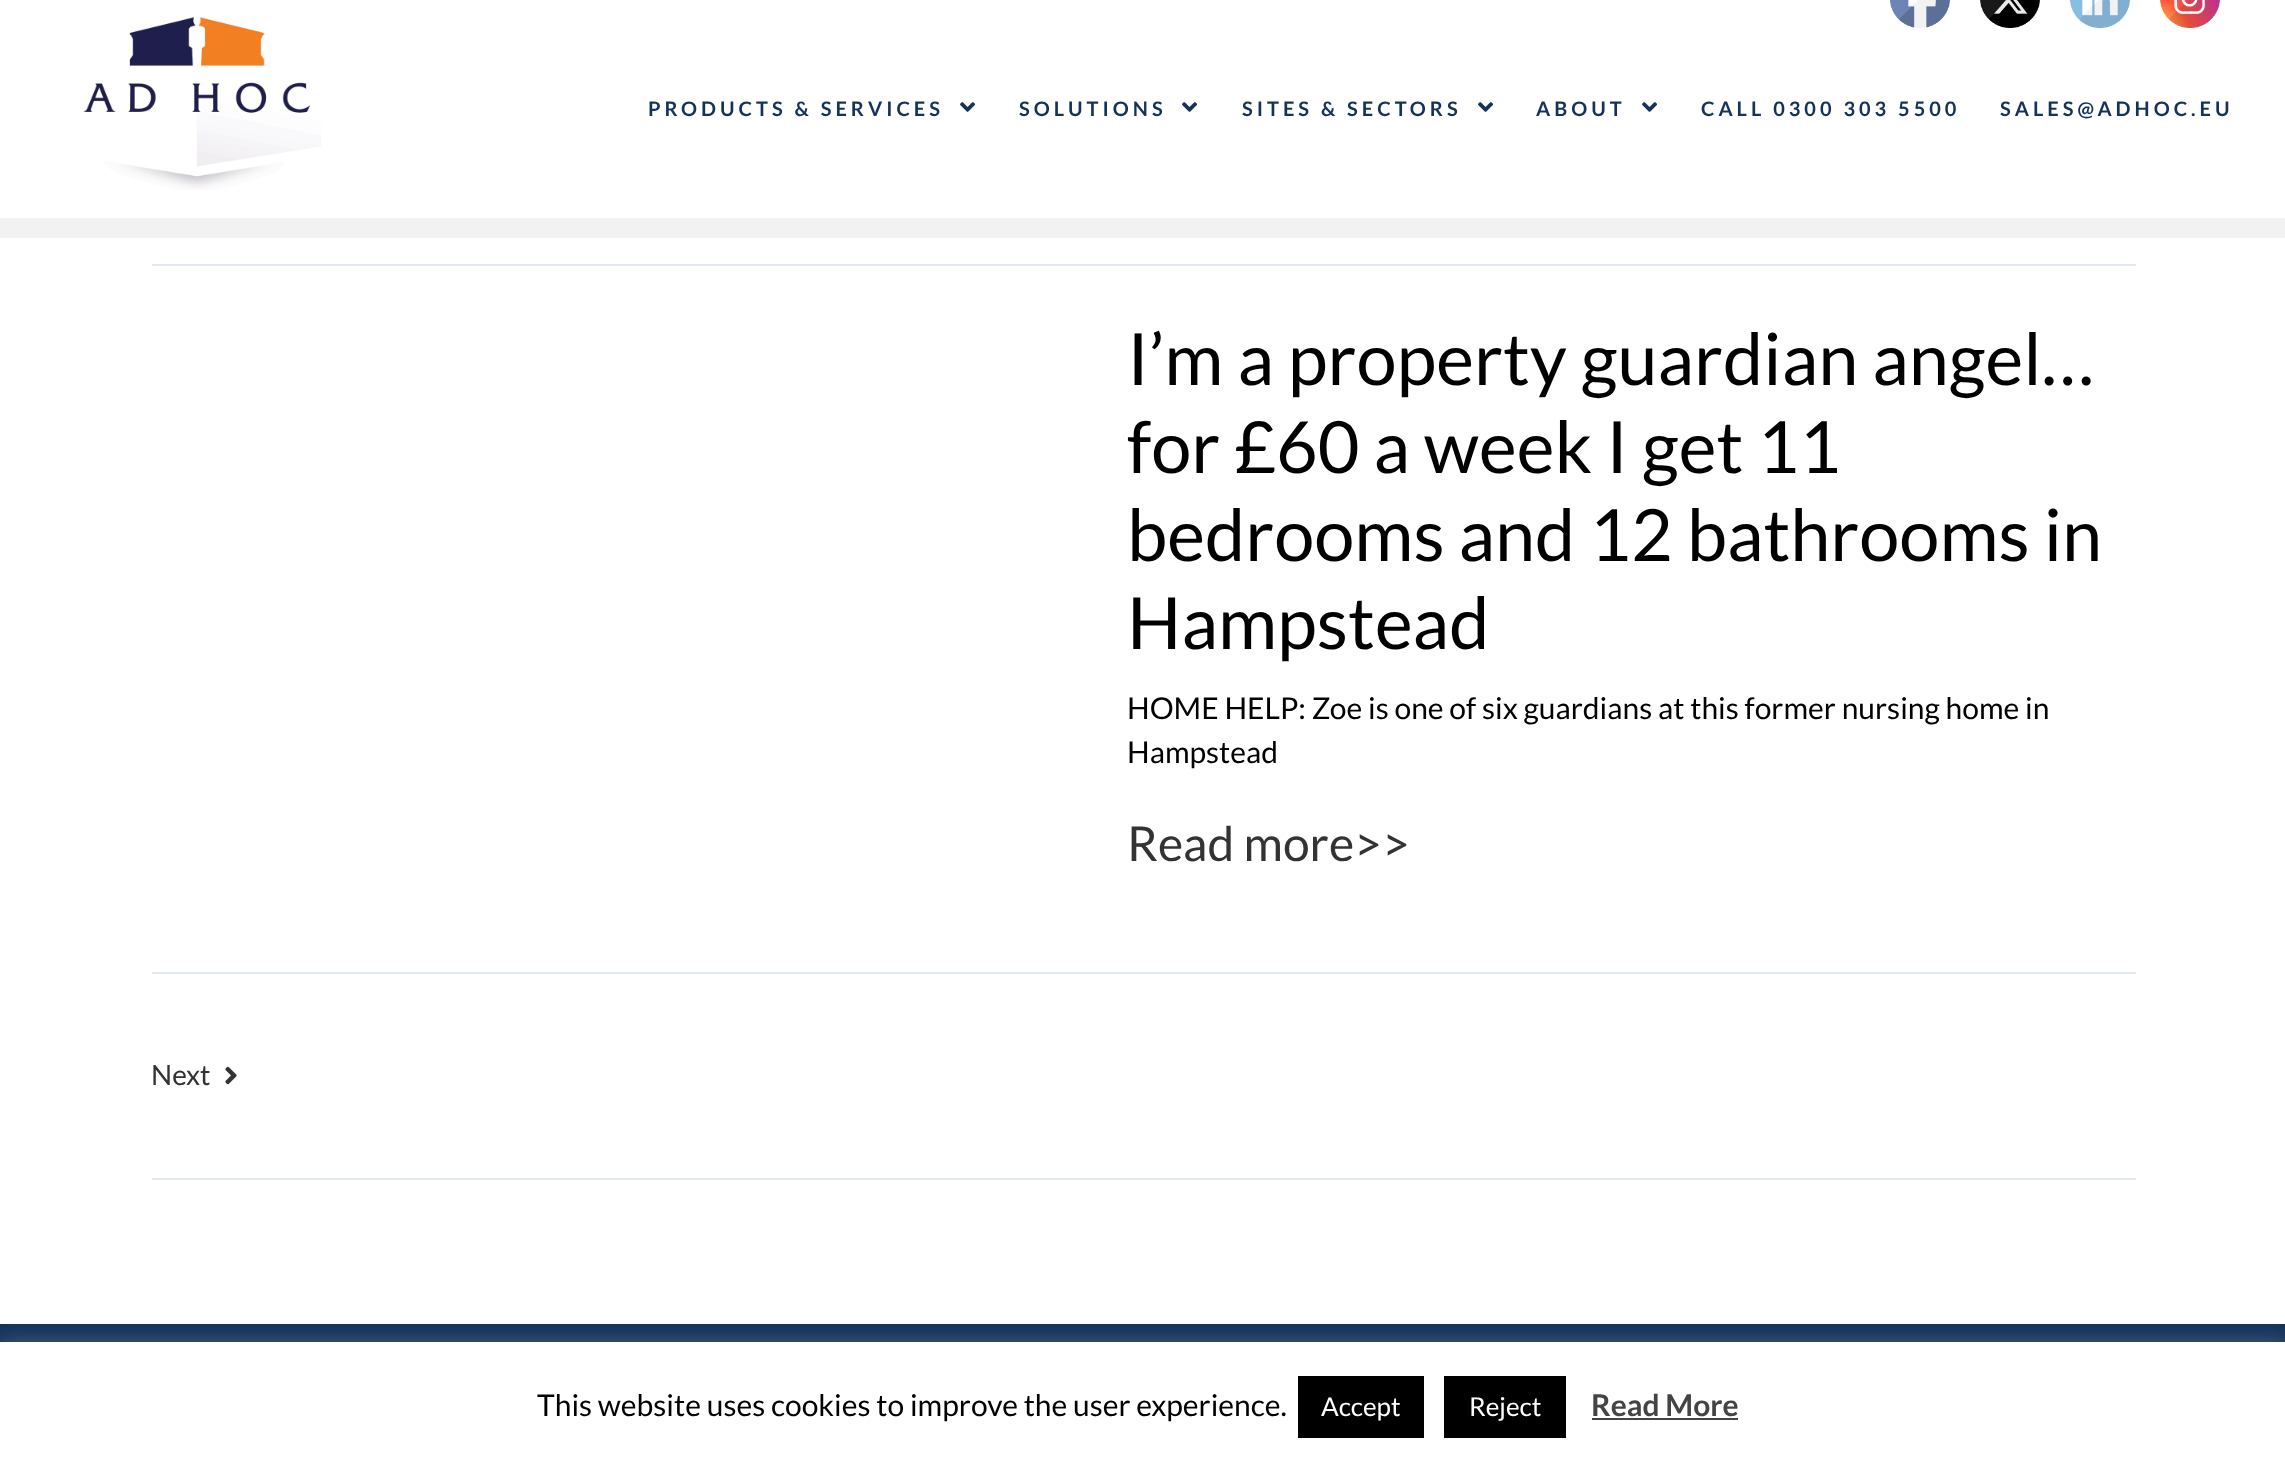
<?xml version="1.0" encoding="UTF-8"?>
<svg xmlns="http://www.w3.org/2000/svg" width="2285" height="1471">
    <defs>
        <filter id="blur1" x="-50%" y="-200%" width="200%" height="500%"><feGaussianBlur stdDeviation="10"/></filter>
    </defs>
    <rect width="100%" height="100%" fill="#FFFFFF"/>
    <image x="1890" y="0" width="60" height="28" href="img_01.png"/>
    <image x="1980" y="0" width="60" height="28" href="img_02.png"/>
    <image x="2070" y="0" width="60" height="28" href="img_03.png"/>
    <image x="2160" y="0" width="60" height="28" href="img_04.png"/>
    <rect x="0" y="218" width="2285" height="20" fill="#F2F2F2"/>
    <image x="83" y="16" width="238" height="174" href="img_05.png"/>
    <text x="648" y="116" font-family="Lato" font-size="20" font-weight="700" letter-spacing="4" fill="#14325C">PRODUCTS &amp; SERVICES</text>
    <image x="960" y="102" width="15" height="10" href="img_06.png"/>
    <text x="1019" y="116" font-family="Lato" font-size="20" font-weight="700" letter-spacing="4" fill="#14325C">SOLUTIONS</text>
    <image x="1182" y="102" width="15" height="10" href="img_06.png"/>
    <text x="1242" y="116" font-family="Lato" font-size="20" font-weight="700" letter-spacing="4" fill="#14325C">SITES &amp; SECTORS</text>
    <image x="1478" y="102" width="15" height="10" href="img_06.png"/>
    <text x="1536" y="116" font-family="Lato" font-size="20" font-weight="700" letter-spacing="4" fill="#14325C">ABOUT</text>
    <image x="1642" y="102" width="15" height="10" href="img_06.png"/>
    <text x="1701" y="116" font-family="Lato" font-size="20" font-weight="700" letter-spacing="4" fill="#14325C">CALL 0300 303 5500</text>
    <text x="2000" y="116" font-family="Lato" font-size="20" font-weight="700" letter-spacing="4" fill="#14325C">SALES@ADHOC.EU</text>
    <rect x="152" y="972" width="1984" height="2" fill="#E2E8F0"/>
    <rect x="152" y="264" width="1984" height="2" fill="#E2E8F0"/>
    <text font-family="Lato" font-size="72" fill="#000000">
        <tspan x="1127" y="385">I’m a property guardian angel…</tspan>
        <tspan x="1127" y="473">for £60 a week I get 11</tspan>
        <tspan x="1127" y="561">bedrooms and 12 bathrooms in</tspan>
        <tspan x="1127" y="649">Hampstead</tspan>
    </text>
    <text font-family="Lato" font-size="30" fill="#000000">
        <tspan x="1127" y="719">HOME HELP: Zoe is one of six guardians at this former nursing home in</tspan>
        <tspan x="1127" y="763">Hampstead</tspan>
    </text>
    <text x="1127" y="861" font-family="Lato" font-size="48" fill="#333333">Read more&gt;&gt;</text>
    <rect x="152" y="1178" width="1984" height="2" fill="#E2E8F0"/>
    <text x="151" y="1085" font-family="Lato" font-size="28" fill="#333333">Next</text>
    <image x="225" y="1066" width="12" height="19" href="img_07.png"/>
    <rect x="0" y="1324" width="2285" height="18" fill="#14325C"/>
    <rect x="0" y="1340" width="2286" height="130" fill="#ACABAB" fill-opacity="0.3" filter="url(#blur1)"/>
    <rect x="0" y="1342" width="2285" height="129" fill="#FFFFFF"/>
    <text x="537" y="1416" font-family="Lato" font-size="30" fill="#000000">This website uses cookies to improve the user experience.</text>
    <rect x="1298" y="1376" width="126" height="62" fill="#000000"/>
    <text x="1321" y="1416" font-family="Lato" font-size="26" fill="#FFFFFF">Accept</text>
    <rect x="1444" y="1376" width="122" height="62" fill="#000000"/>
    <text x="1469" y="1416" font-family="Lato" font-size="26" fill="#FFFFFF">Reject</text>
    <text x="1591" y="1416" font-family="Lato" font-size="30" font-weight="700" fill="#444444">Read More</text>
    <rect x="1592" y="1418" width="146" height="2" fill="#444444"/>
</svg>
